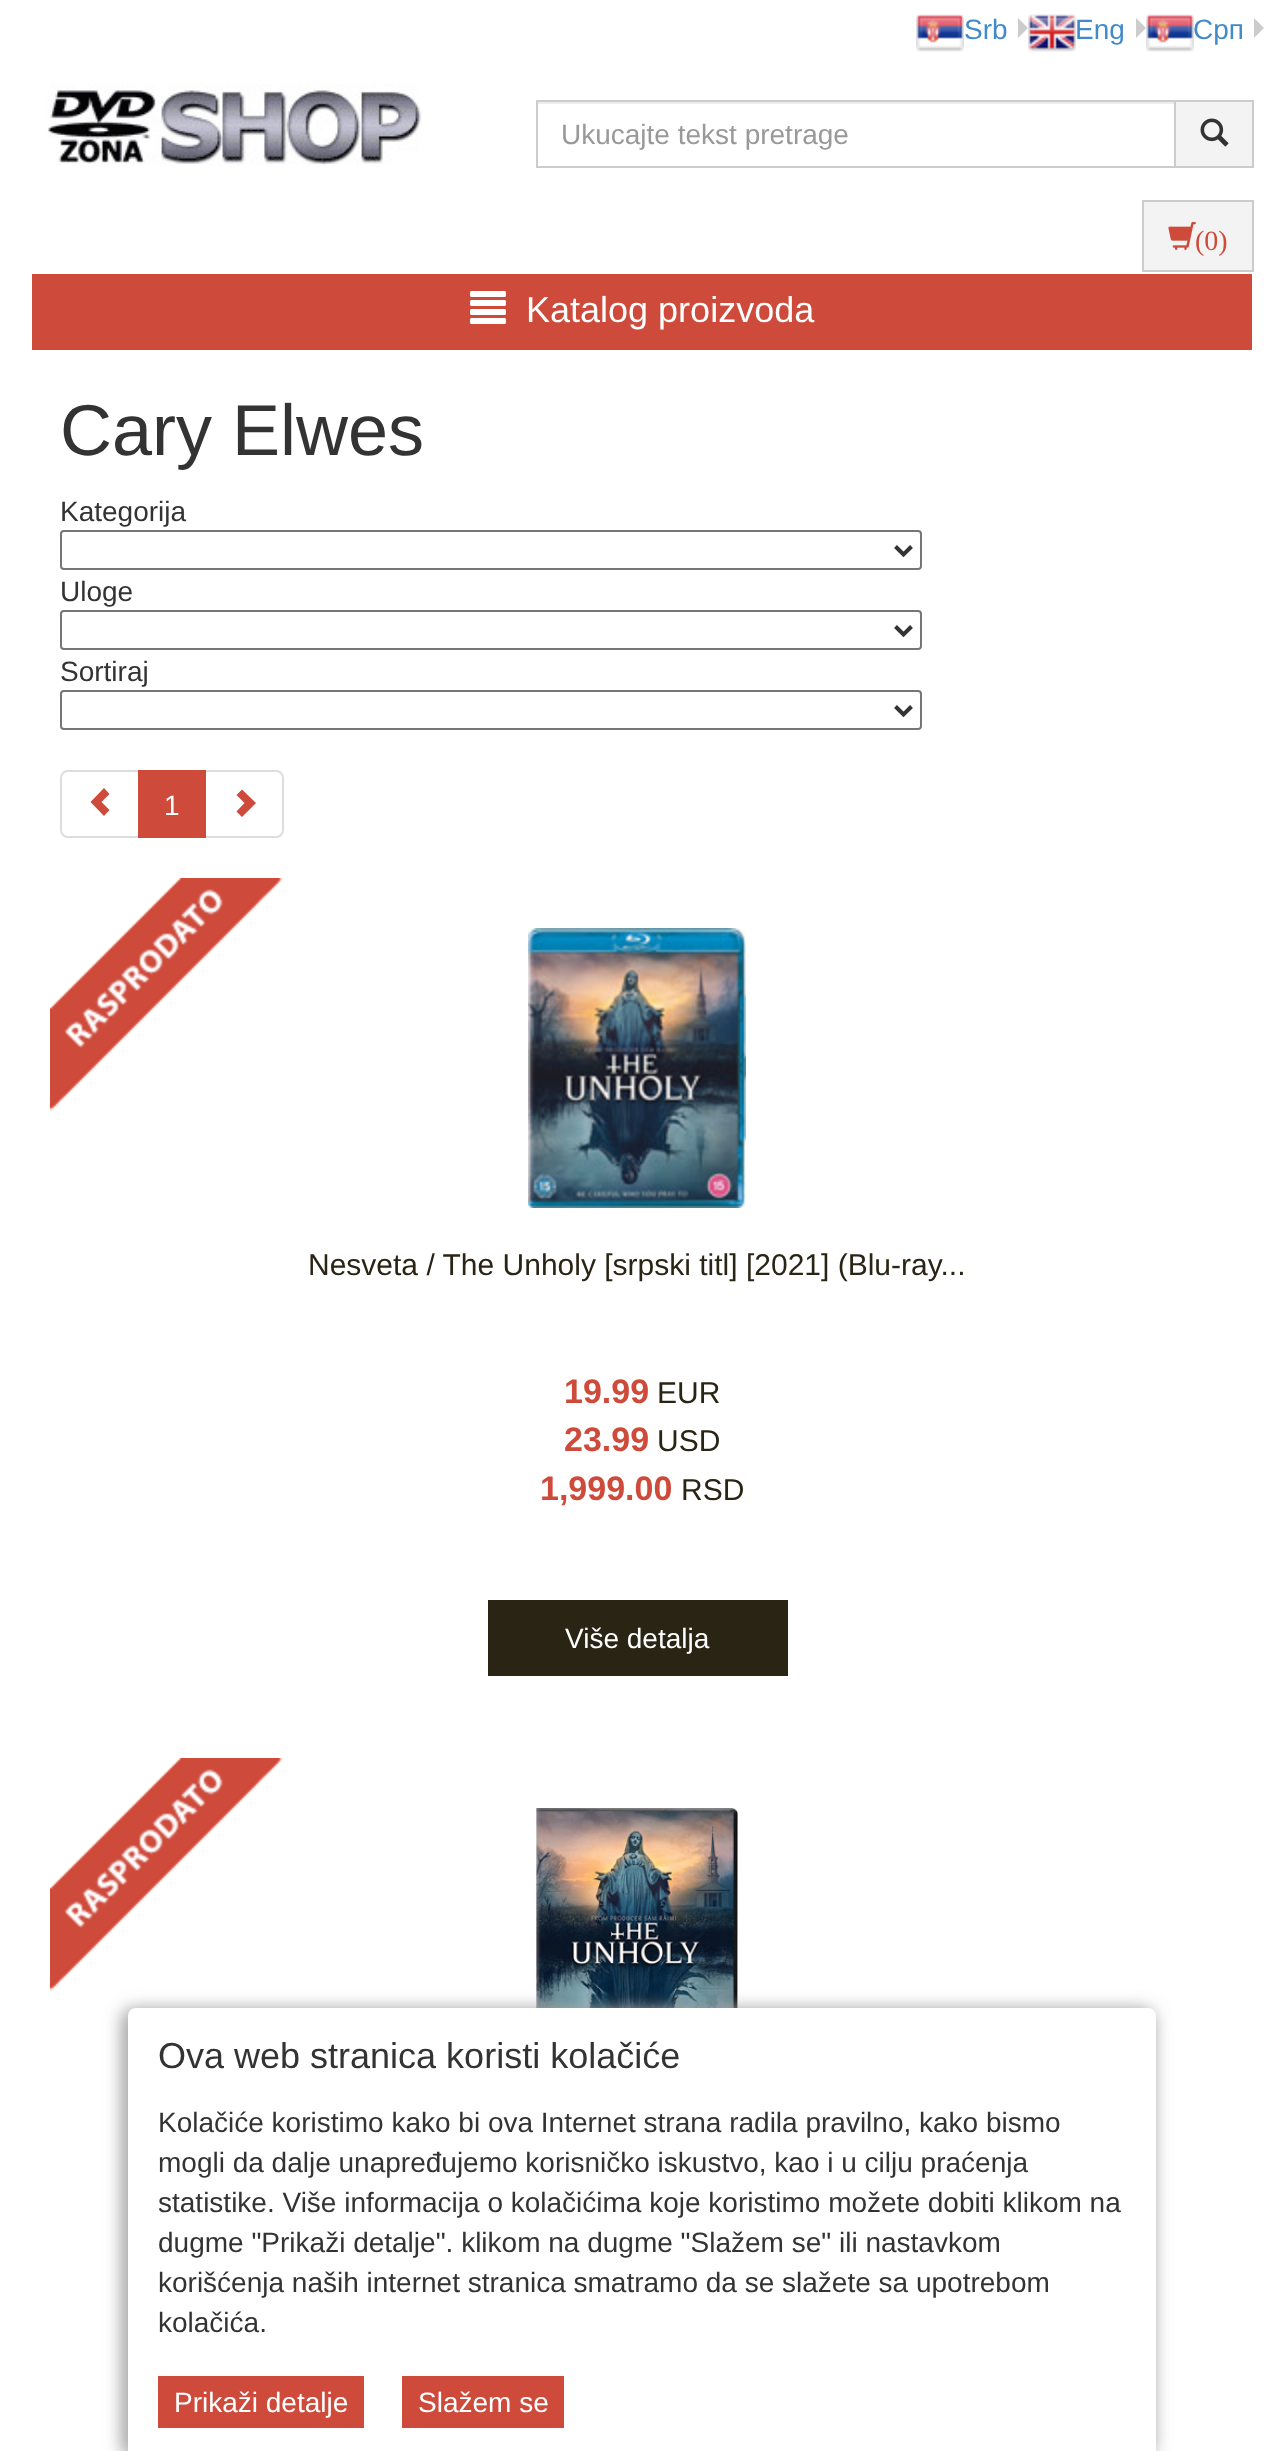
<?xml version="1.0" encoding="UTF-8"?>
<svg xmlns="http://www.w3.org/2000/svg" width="1284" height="2451">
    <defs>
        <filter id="blur1" x="-50%" y="-200%" width="200%" height="500%"><feGaussianBlur stdDeviation="9"/></filter>
    </defs>
    <rect width="100%" height="100%" fill="#FFFFFF"/>
    <image x="916" y="14" width="48" height="38" href="img_01.png"/>
    <text x="964" y="39" font-family="Liberation Sans" font-size="28" fill="#428BCA">Srb</text>
    <path d="M 1018 38 V 18 L 1028 28 Z" fill="#CCCCCC"/>
    <image x="1028" y="14" width="48" height="38" href="img_02.png"/>
    <text x="1075" y="39" font-family="Liberation Sans" font-size="28" fill="#428BCA">Eng</text>
    <path d="M 1136 38 V 18 L 1146 28 Z" fill="#CCCCCC"/>
    <image x="1146" y="14" width="48" height="38" href="img_01.png"/>
    <text x="1193" y="39" font-family="Liberation Sans" font-size="28" fill="#428BCA">Срп</text>
    <path d="M 1254 38 V 18 L 1264 28 Z" fill="#CCCCCC"/>
    <image x="47" y="84" width="375" height="82" href="img_03.png"/>
    <rect x="538" y="102" width="636" height="2" fill="#ECECEC"/>
    <rect x="1175" y="101" width="78" height="66" fill="#F3F3F3" stroke="#CCCCCC" stroke-width="2"/>
    <rect x="537" y="101" width="638" height="66" fill="none" stroke="#CCCCCC" stroke-width="2"/>
    <text x="561" y="144" font-family="Liberation Sans" font-size="28" fill="#999999">Ukucajte tekst pretrage</text>
    <image x="1200" y="118" width="29" height="29" href="img_04.png"/>
    <rect x="1143" y="201" width="110" height="70" fill="#F3F3F3" stroke="#CCCCCC" stroke-width="2"/>
    <image x="1168" y="222" width="28" height="28" href="img_05.png"/>
    <text x="1195" y="250" font-family="Liberation Serif" font-size="28" fill="#CE4A3B">(0)</text>
    <rect x="32" y="274" width="1220" height="76" fill="#CE4A3B"/>
    <image x="470" y="291" width="36" height="33" href="img_06.png"/>
    <text x="526" y="322" font-family="Liberation Sans" font-size="36" fill="#FFFFFF">Katalog proizvoda</text>
    <text x="60" y="455" font-family="Liberation Sans" font-size="72" fill="#333333">Cary Elwes</text>
    <text x="60" y="521" font-family="Liberation Sans" font-size="28" fill="#333333">Kategorija</text>
    <rect x="61" y="531" width="860" height="38" rx="3" fill="none" stroke="#767676" stroke-width="2"/>
    <path d="M 895.5 546.5 L 903.5 554.5 L 911.5 546.5" fill="none" stroke="#333333" stroke-width="4"/>
    <text x="60" y="601" font-family="Liberation Sans" font-size="28" fill="#333333">Uloge</text>
    <rect x="61" y="611" width="860" height="38" rx="3" fill="none" stroke="#767676" stroke-width="2"/>
    <path d="M 895.5 626.5 L 903.5 634.5 L 911.5 626.5" fill="none" stroke="#333333" stroke-width="4"/>
    <text x="60" y="681" font-family="Liberation Sans" font-size="28" fill="#333333">Sortiraj</text>
    <rect x="61" y="691" width="860" height="38" rx="3" fill="none" stroke="#767676" stroke-width="2"/>
    <path d="M 895.5 706.5 L 903.5 714.5 L 911.5 706.5" fill="none" stroke="#333333" stroke-width="4"/>
    <path d="M 68 771 H 139 V 837 H 68 C 64 837 61 834 61 830 V 778 C 61 774 64 771 68 771 Z" fill="none" stroke="#DDDDDD" stroke-width="2"/>
    <path d="M 90.5 802 L 104 816 L 109.5 810 L 101.5 802 L 109.5 794 L 104 788 Z" fill="#CE4A3B"/>
    <path d="M 205 771 H 276 C 280 771 283 774 283 778 V 830 C 283 834 280 837 276 837 H 205 Z" fill="none" stroke="#DDDDDD" stroke-width="2"/>
    <rect x="138" y="770" width="68" height="68" fill="#CE4A3B"/>
    <text x="164" y="815" font-family="Liberation Sans" font-size="28" fill="#FFFFFF">1</text>
    <path d="M 236.5 811.5 L 244.5 803 L 236.5 795 L 242 789.5 L 256 803 L 242 817 Z" fill="#CE4A3B"/>
    <image x="50" y="878" width="233" height="233" href="img_07.png"/>
    <image x="528" y="928" width="218" height="280" href="img_08.png"/>
    <text x="308" y="1275" font-family="Liberation Sans" font-size="30" fill="#2A2415">Nesveta / The Unholy [srpski titl] [2021] (Blu-ray...</text>
    <text x="564" y="1403" font-family="Liberation Sans" font-size="34" font-weight="700" fill="#CE4A3B">19.99</text>
    <text x="657" y="1403" font-family="Liberation Sans" font-size="30" fill="#2A2415">EUR</text>
    <text x="564" y="1451" font-family="Liberation Sans" font-size="34" font-weight="700" fill="#CE4A3B">23.99</text>
    <text x="657" y="1451" font-family="Liberation Sans" font-size="30" fill="#2A2415">USD</text>
    <text x="540" y="1500" font-family="Liberation Sans" font-size="34" font-weight="700" fill="#CE4A3B">1,999.00</text>
    <text x="681" y="1500" font-family="Liberation Sans" font-size="30" fill="#2A2415">RSD</text>
    <rect x="488" y="1600" width="300" height="76" fill="#2A2415"/>
    <text x="565" y="1648" font-family="Liberation Sans" font-size="28" fill="#FFFFFF">Više detalja</text>
    <image x="50" y="1758" width="233" height="233" href="img_07.png"/>
    <image x="536" y="1808" width="202" height="200" href="img_09.png"/>
    <rect x="124" y="2012" width="1028" height="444" rx="8" fill="#A5A5A5" fill-opacity="0.8" filter="url(#blur1)"/>
    <rect x="124" y="2010" width="1028" height="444" rx="8" fill="#A5A5A5" fill-opacity="0.8" filter="url(#blur1)"/>
    <path d="M 136 2008 H 1148 C 1152.5 2008 1156 2011.5 1156 2016 V 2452 H 128 V 2016 C 128 2011.5 131.5 2008 136 2008 Z" fill="#FFFFFF"/>
    <text x="158" y="2068" font-family="Liberation Sans" font-size="36" fill="#333333">Ova web stranica koristi kolačiće</text>
    <text font-family="Liberation Sans" font-size="28" fill="#333333">
        <tspan x="158" y="2132">Kolačiće koristimo kako bi ova Internet strana radila pravilno, kako bismo</tspan>
        <tspan x="158" y="2172">mogli da dalje unapređujemo korisničko iskustvo, kao i u cilju praćenja</tspan>
        <tspan x="158" y="2212">statistike. Više informacija o kolačićima koje koristimo možete dobiti klikom na</tspan>
        <tspan x="158" y="2252">dugme "Prikaži detalje". klikom na dugme "Slažem se" ili nastavkom</tspan>
        <tspan x="158" y="2292">korišćenja naših internet stranica smatramo da se slažete sa upotrebom</tspan>
        <tspan x="158" y="2332">kolačića.</tspan>
    </text>
    <rect x="158" y="2376" width="206" height="52" fill="#CE4A3B"/>
    <text x="174" y="2412" font-family="Liberation Sans" font-size="28" fill="#FFFFFF">Prikaži detalje</text>
    <rect x="402" y="2376" width="162" height="52" fill="#CE4A3B"/>
    <text x="418" y="2412" font-family="Liberation Sans" font-size="28" fill="#FFFFFF">Slažem se</text>
</svg>
